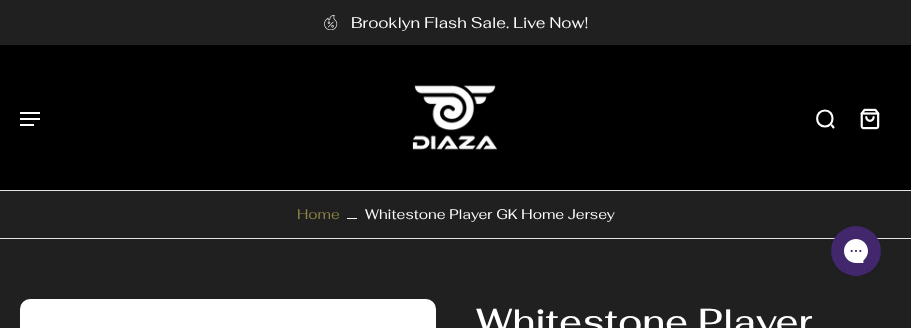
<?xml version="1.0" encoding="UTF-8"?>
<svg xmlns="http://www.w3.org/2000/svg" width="911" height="328">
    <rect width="100%" height="100%" fill="#202020"/>
    <image x="324" y="15" width="14" height="15" href="img_01.png"/>
    <text x="351" y="28" font-family="Fahkwang" font-size="15.4" fill="#FFFFFF">Brooklyn Flash Sale. Live Now!</text>
    <rect x="0" y="45" width="911" height="145" fill="#000000"/>
    <image x="20" y="112" width="20" height="14" href="img_02.png"/>
    <image x="412" y="85" width="85" height="65" href="img_03.png"/>
    <path d="M 825 126.5 C 835 126.5 835 110.5 825 110.5 C 814.5 110.5 814.5 126.5 825 126.5 Z M 833.5 127.5 L 832 125.5" fill="none" stroke="#FFFFFF" stroke-width="2.1" stroke-linecap="round" stroke-linejoin="round"/>
    <image x="860" y="108" width="20" height="22" href="img_04.png"/>
    <rect x="0" y="190" width="911" height="1" fill="#E3E3E3"/>
    <rect x="0" y="238" width="911" height="1" fill="#E3E3E3"/>
    <text x="297" y="219" font-family="Fahkwang" font-size="14" fill="#8E8344">Home</text>
    <rect x="347" y="218" width="10" height="1" fill="#FFFFFF"/>
    <text x="365" y="219" font-family="Fahkwang" font-size="14" fill="#FFFFFF">Whitestone Player GK Home Jersey</text>
    <image x="20" y="299" width="416" height="29" href="img_05.png"/>
    <text x="476" y="334" font-family="Fahkwang" font-size="36" font-weight="500" fill="#FFFFFF">Whitestone Player</text>
    <image x="831" y="226" width="50" height="50" href="img_06.png"/>
</svg>
